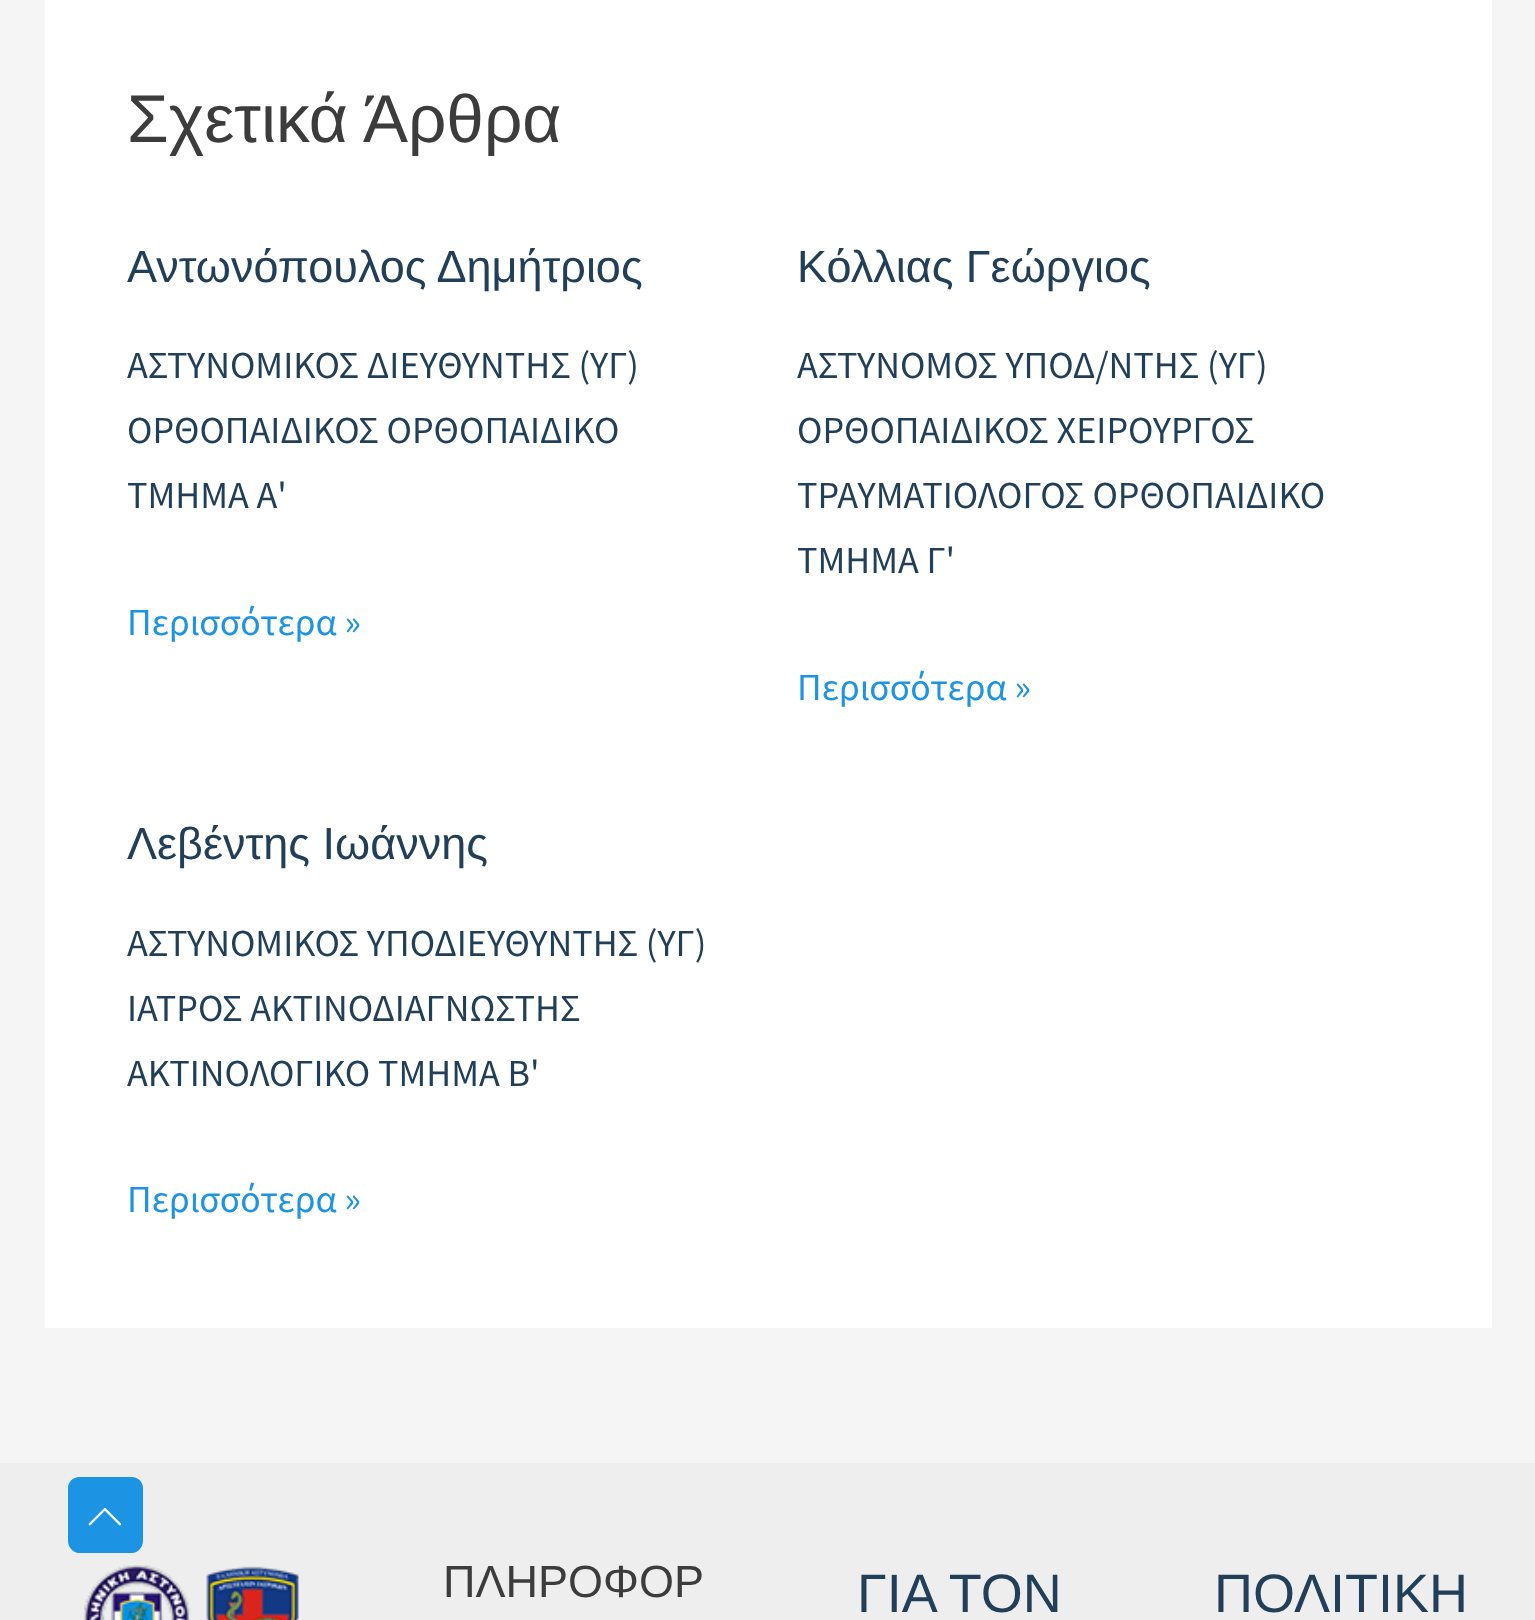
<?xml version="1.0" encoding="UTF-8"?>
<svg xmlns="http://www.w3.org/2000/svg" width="1535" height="1620">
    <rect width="100%" height="100%" fill="#F5F5F5"/>
    <rect x="0" y="1463" width="1535" height="157" fill="#EEEEEE"/>
    <path d="M 132 1553 H 79 C 73 1553 68 1547 68 1541 V 1488 C 68 1482 73 1477 79 1477 H 132 C 138 1477 143 1482 143 1488 V 1541 C 143 1547 138 1553 132 1553 Z" fill="#1C93E3"/>
    <image x="88" y="1508" width="33" height="18" href="img_01.png"/>
    <rect x="45" y="0" width="1447" height="1328" fill="#FFFFFF"/>
    <text x="127" y="142" font-family="Liberation Sans" font-size="67.5" fill="#3C3C3C">Σχετικά Άρθρα</text>
    <text x="127" y="282" font-family="Liberation Sans" font-size="45" fill="#213F58">Αντωνόπουλος Δημήτριος</text>
    <text font-family="Source Sans Pro" font-size="38.25" fill="#213F58">
        <tspan x="127" y="378">ΑΣΤΥΝΟΜΙΚΟΣ ΔΙΕΥΘΥΝΤΗΣ (ΥΓ)</tspan>
        <tspan x="127" y="443">ΟΡΘΟΠAIΔΙΚΟΣ ΟΡΘΟΠΑΙΔΙΚΟ</tspan>
        <tspan x="127" y="508">ΤΜΗΜΑ Α'</tspan>
    </text>
    <text x="127" y="635" font-family="Source Sans Pro" font-size="38.25" fill="#1C93E3">Περισσότερα »</text>
    <text x="797" y="282" font-family="Liberation Sans" font-size="45" fill="#213F58">Κόλλιας Γεώργιος</text>
    <text font-family="Source Sans Pro" font-size="38.25" fill="#213F58">
        <tspan x="797" y="378">ΑΣΤΥΝΟΜΟΣ ΥΠΟΔ/ΝΤΗΣ (ΥΓ)</tspan>
        <tspan x="797" y="443">ΟΡΘΟΠAIΔΙΚΟΣ ΧΕΙΡΟΥΡΓΟΣ</tspan>
        <tspan x="797" y="508">ΤΡΑΥΜΑΤΙΟΛΟΓΟΣ ΟΡΘΟΠΑΙΔΙΚΟ</tspan>
        <tspan x="797" y="573">ΤΜΗΜΑ Γ'</tspan>
    </text>
    <text x="797" y="700" font-family="Source Sans Pro" font-size="38.25" fill="#1C93E3">Περισσότερα »</text>
    <text x="127" y="859" font-family="Liberation Sans" font-size="45" fill="#213F58">Λεβέντης Ιωάννης</text>
    <text font-family="Source Sans Pro" font-size="38.25" fill="#213F58">
        <tspan x="127" y="956">ΑΣΤΥΝΟΜΙΚΟΣ ΥΠΟΔΙΕΥΘΥΝΤΗΣ (ΥΓ)</tspan>
        <tspan x="127" y="1021">ΙΑΤΡΟΣ ΑΚΤΙΝΟΔΙΑΓΝΩΣΤΗΣ</tspan>
        <tspan x="127" y="1086">ΑΚΤΙΝΟΛΟΓΙΚΟ ΤΜΗΜΑ Β'</tspan>
    </text>
    <text x="127" y="1212" font-family="Source Sans Pro" font-size="38.25" fill="#1C93E3">Περισσότερα »</text>
    <image x="83" y="1565" width="216" height="55" href="img_02.png"/>
    <text x="443" y="1597" font-family="Liberation Sans" font-size="45" fill="#3C3C3C">ΠΛΗΡΟΦΟΡ</text>
    <text x="857" y="1612" font-family="Liberation Sans" font-size="54" fill="#213F58">ΓΙΑ ΤΟΝ</text>
    <text x="1214" y="1612" font-family="Liberation Sans" font-size="54" fill="#213F58">ΠΟΛΙΤΙΚΗ</text>
</svg>
